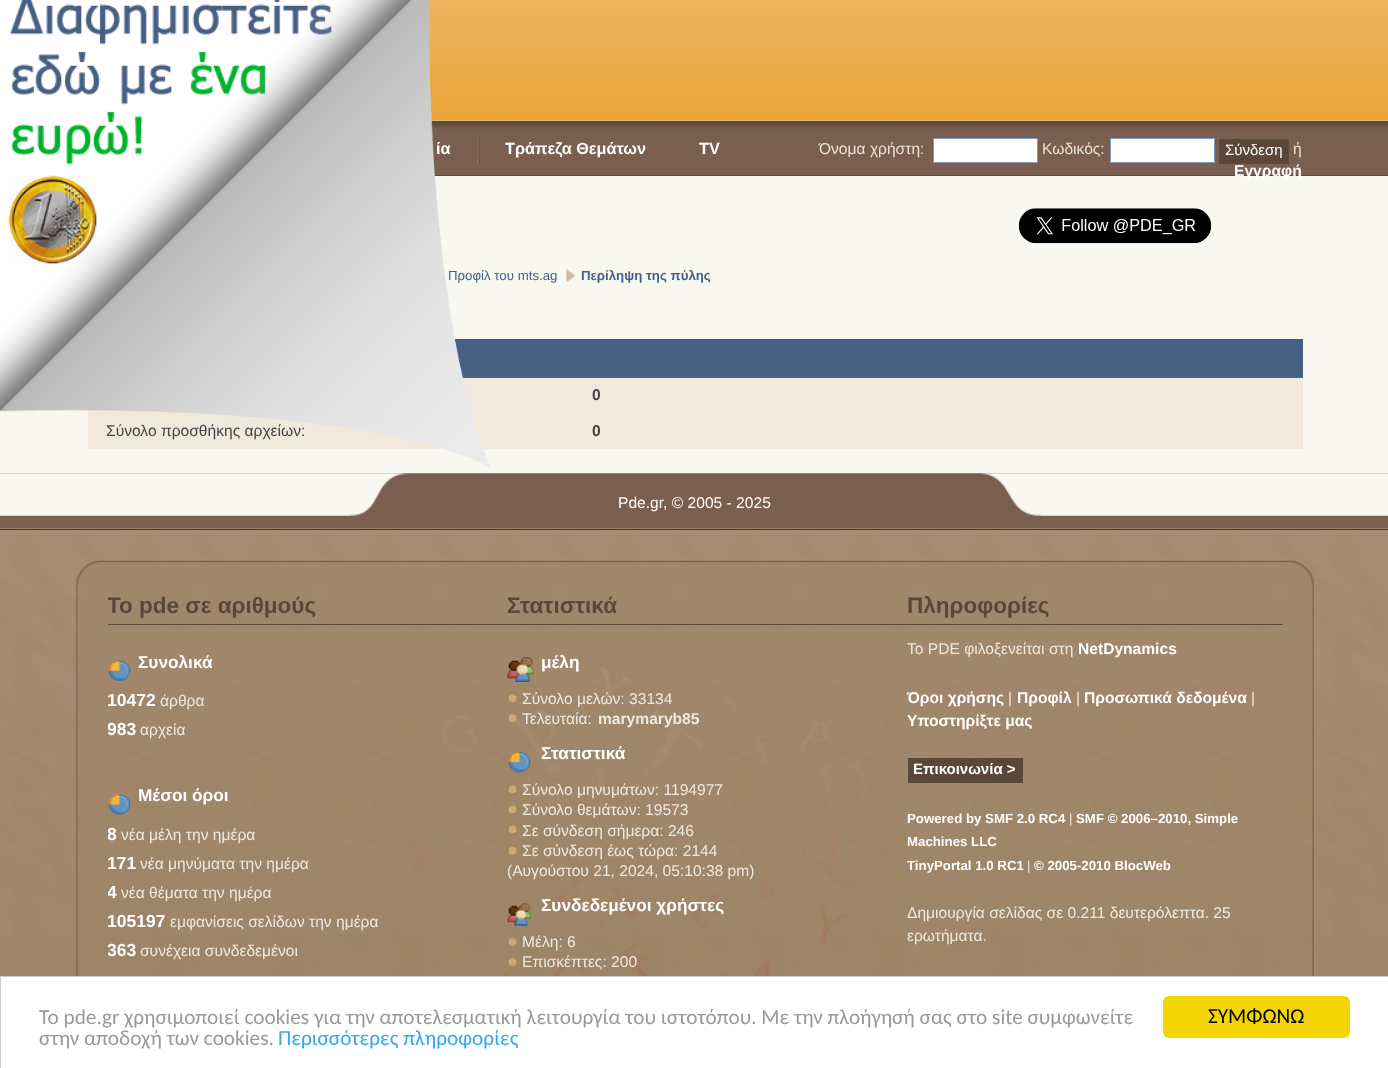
<?xml version="1.0" encoding="UTF-8"?>
<svg xmlns="http://www.w3.org/2000/svg" width="1388" height="1068">
    <defs>
        <clipPath id="clip1"><rect x="108" y="589" width="1175" height="409"/></clipPath>
    </defs>
    <rect width="100%" height="100%" fill="#F8F8F1"/>
    <rect x="88" y="378" width="1215" height="71" fill="#F2E9DD"/>
    <image x="0" y="0" width="412" height="407" href="img_01.png"/>
    <image x="428" y="0" width="960" height="121" href="img_03.png"/>
    <rect x="431" y="129" width="957" height="46" fill="#7A5F50"/>
    <image x="431" y="122" width="957" height="7" href="img_04.png"/>
    <rect x="431" y="121" width="957" height="1" fill="#5A473A"/>
    <rect x="434" y="175" width="954" height="1" fill="#5A473A"/>
    <text x="436" y="154" font-family="Liberation Sans" font-size="16.25" font-weight="700" fill="#FFFFFF">ία</text>
    <image x="477" y="135" width="3" height="30" href="img_05.png"/>
    <text x="448" y="280" font-family="Liberation Sans" font-size="13.25" fill="#466083">Προφίλ του mts.ag</text>
    <rect x="454" y="339" width="849" height="39" fill="#466083"/>
    <text x="106" y="436" font-family="Liberation Sans" font-size="15.6" fill="#444444">Σύνολο προσθήκης αρχείων:</text>
    <image x="0" y="0" width="490" height="467" href="img_02.png"/>
    <text x="505" y="154" font-family="Liberation Sans" font-size="16.25" font-weight="700" fill="#FFFFFF">Τράπεζα Θεμάτων</text>
    <text x="699" y="154" font-family="Liberation Sans" font-size="16.25" font-weight="700" fill="#FFFFFF">TV</text>
    <text x="819" y="154" font-family="Liberation Sans" font-size="15.6" fill="#EBE2D7">Όνομα χρήστη:</text>
    <rect x="933.5" y="138.5" width="104" height="24" fill="#FFFFFF" stroke="#7F9DB9"/>
    <text x="1042" y="154" font-family="Liberation Sans" font-size="15.6" fill="#EBE2D7">Κωδικός:</text>
    <rect x="1110.5" y="138.5" width="104" height="24" fill="#FFFFFF" stroke="#7F9DB9"/>
    <rect x="1219.5" y="139.5" width="69" height="24" fill="#5A473A" stroke="#574B3E"/>
    <text x="1225" y="155" font-family="Liberation Sans" font-size="15" fill="#FFFFFF">Σύνδεση</text>
    <text x="1293" y="154" font-family="Liberation Sans" font-size="15.6" fill="#EBE2D7">ή</text>
    <text x="1234" y="176" font-family="Liberation Sans" font-size="15.6" font-weight="700" fill="#FFFFFF">Εγγραφή</text>
    <image x="1018" y="208" width="194" height="36" href="img_06.png"/>
    <image x="566" y="268" width="9" height="14" href="img_07.png"/>
    <text x="581" y="280" font-family="Liberation Sans" font-size="13.25" font-weight="700" fill="#466083">Περίληψη της πύλης</text>
    <text x="592" y="400" font-family="Liberation Sans" font-size="15.6" font-weight="700" fill="#444444">0</text>
    <text x="592" y="436" font-family="Liberation Sans" font-size="15.6" font-weight="700" fill="#444444">0</text>
    <image x="0" y="473" width="1388" height="503" href="img_08.png"/>
    <image x="0" y="473" width="1388" height="56" href="img_09.png"/>
    <rect x="0" y="529" width="1388" height="1" fill="#453930"/>
    <text x="618" y="508" font-family="Liberation Sans" font-size="15.6" fill="#FFFFFF">Pde.gr, © 2005 - 2025</text>
    <image x="76" y="560" width="1238" height="416" href="img_10.png"/>
    <g clip-path="url(#clip1)">
        <text x="107" y="613" font-family="Liberation Sans" font-size="22.5" font-weight="700" fill="#5A473A">Το pde σε αριθμούς</text>
    </g>
    <image x="108" y="660" width="23" height="21" href="img_11.png"/>
    <text x="138" y="668" font-family="Liberation Sans" font-size="17.25" font-weight="700" fill="#FFFFFF">Συνολικά</text>
    <text x="107" y="706" font-family="Liberation Sans" font-size="17.5" font-weight="700" fill="#FFFFFF">10472</text>
    <text x="160" y="706" font-family="Liberation Sans" font-size="15.6" fill="#EEE9DF">άρθρα</text>
    <g clip-path="url(#clip1)">
        <text x="107" y="735" font-family="Liberation Sans" font-size="17.5" font-weight="700" fill="#FFFFFF">983</text>
    </g>
    <text x="140" y="735" font-family="Liberation Sans" font-size="15.6" fill="#EEE9DF">αρχεία</text>
    <image x="108" y="794" width="23" height="21" href="img_12.png"/>
    <text x="138" y="801" font-family="Liberation Sans" font-size="17.25" font-weight="700" fill="#FFFFFF">Μέσοι όροι</text>
    <g clip-path="url(#clip1)">
        <text x="107" y="840" font-family="Liberation Sans" font-size="17.5" font-weight="700" fill="#FFFFFF">8</text>
    </g>
    <text x="121" y="840" font-family="Liberation Sans" font-size="15.6" fill="#EEE9DF">νέα μέλη την ημέρα</text>
    <text x="107" y="869" font-family="Liberation Sans" font-size="17.5" font-weight="700" fill="#FFFFFF">171</text>
    <text x="140" y="869" font-family="Liberation Sans" font-size="15.6" fill="#EEE9DF">νέα μηνύματα την ημέρα</text>
    <g clip-path="url(#clip1)">
        <text x="107" y="898" font-family="Liberation Sans" font-size="17.5" font-weight="700" fill="#FFFFFF">4</text>
    </g>
    <text x="121" y="898" font-family="Liberation Sans" font-size="15.6" fill="#EEE9DF">νέα θέματα την ημέρα</text>
    <text x="107" y="927" font-family="Liberation Sans" font-size="17.5" font-weight="700" fill="#FFFFFF">105197</text>
    <text x="170" y="927" font-family="Liberation Sans" font-size="15.6" fill="#EEE9DF">εμφανίσεις σελίδων την ημέρα</text>
    <g clip-path="url(#clip1)">
        <text x="107" y="956" font-family="Liberation Sans" font-size="17.5" font-weight="700" fill="#FFFFFF">363</text>
    </g>
    <text x="140" y="956" font-family="Liberation Sans" font-size="15.6" fill="#EEE9DF">συνέχεια συνδεδεμένοι</text>
    <text x="507" y="613" font-family="Liberation Sans" font-size="22.5" font-weight="700" fill="#5A473A">Στατιστικά</text>
    <image x="507" y="657" width="27" height="25" href="img_13.png"/>
    <text x="541" y="668" font-family="Liberation Sans" font-size="17.25" font-weight="700" fill="#FFFFFF">μέλη</text>
    <image x="508" y="694" width="9" height="9" href="img_14.png"/>
    <text x="522" y="704" font-family="Liberation Sans" font-size="15.6" fill="#EEE9DF">Σύνολο μελών: 33134</text>
    <image x="508" y="714" width="9" height="9" href="img_15.png"/>
    <text x="522" y="724" font-family="Liberation Sans" font-size="15.6" fill="#EEE9DF">Τελευταία:</text>
    <text x="598" y="724" font-family="Liberation Sans" font-size="15.6" font-weight="700" fill="#EEE9DF">marymaryb85</text>
    <image x="508" y="751" width="23" height="22" href="img_16.png"/>
    <text x="541" y="759" font-family="Liberation Sans" font-size="17.25" font-weight="700" fill="#FFFFFF">Στατιστικά</text>
    <image x="508" y="785" width="9" height="9" href="img_17.png"/>
    <text x="522" y="795" font-family="Liberation Sans" font-size="15.6" fill="#EEE9DF">Σύνολο μηνυμάτων: 1194977</text>
    <image x="508" y="805" width="9" height="9" href="img_18.png"/>
    <text x="522" y="815" font-family="Liberation Sans" font-size="15.6" fill="#EEE9DF">Σύνολο θεμάτων: 19573</text>
    <image x="508" y="825" width="9" height="9" href="img_19.png"/>
    <text x="522" y="836" font-family="Liberation Sans" font-size="15.6" fill="#EEE9DF">Σε σύνδεση σήμερα: 246</text>
    <image x="508" y="847" width="9" height="8" href="img_20.png"/>
    <text x="522" y="856" font-family="Liberation Sans" font-size="15.6" fill="#EEE9DF">Σε σύνδεση έως τώρα: 2144</text>
    <text x="507" y="876" font-family="Liberation Sans" font-size="15.6" fill="#EEE9DF">(Αυγούστου 21, 2024, 05:10:38 pm)</text>
    <image x="507" y="903" width="25" height="23" href="img_21.png"/>
    <text x="541" y="911" font-family="Liberation Sans" font-size="17.25" font-weight="700" fill="#FFFFFF">Συνδεδεμένοι χρήστες</text>
    <image x="508" y="938" width="9" height="8" href="img_22.png"/>
    <text x="522" y="947" font-family="Liberation Sans" font-size="15.6" fill="#EEE9DF">Μέλη: 6</text>
    <image x="508" y="958" width="9" height="8" href="img_23.png"/>
    <text x="522" y="967" font-family="Liberation Sans" font-size="15.6" fill="#EEE9DF">Επισκέπτες: 200</text>
    <text x="907" y="613" font-family="Liberation Sans" font-size="22.5" font-weight="700" fill="#5A473A">Πληροφορίες</text>
    <text x="907" y="654" font-family="Liberation Sans" font-size="15.6" fill="#EEE9DF">Το PDE φιλοξενείται στη</text>
    <text x="1078" y="654" font-family="Liberation Sans" font-size="15.6" font-weight="700" fill="#FFFFFF">NetDynamics</text>
    <text x="907" y="703" font-family="Liberation Sans" font-size="15.6" font-weight="700" fill="#FFFFFF">Όροι χρήσης</text>
    <text x="1008" y="703" font-family="Liberation Sans" font-size="15.6" fill="#EEE9DF">|</text>
    <text x="1017" y="703" font-family="Liberation Sans" font-size="15.6" font-weight="700" fill="#FFFFFF">Προφίλ</text>
    <text x="1076" y="703" font-family="Liberation Sans" font-size="15.6" fill="#EEE9DF">|</text>
    <text x="1084" y="703" font-family="Liberation Sans" font-size="15.6" font-weight="700" fill="#FFFFFF">Προσωπικά δεδομένα</text>
    <text x="1251" y="703" font-family="Liberation Sans" font-size="15.6" fill="#EEE9DF">|</text>
    <text x="907" y="726" font-family="Liberation Sans" font-size="15.6" font-weight="700" fill="#FFFFFF">Υποστηρίξτε μας</text>
    <rect x="908.5" y="758.5" width="114" height="24" fill="#5A473A" stroke="#574B3E"/>
    <text x="913" y="774" font-family="Liberation Sans" font-size="15" font-weight="700" fill="#FFFFFF">Επικοινωνία &gt;</text>
    <text x="907" y="823" font-family="Liberation Sans" font-size="13.25" font-weight="700" fill="#FFFFFF">Powered by SMF 2.0 RC4</text>
    <text x="1069" y="823" font-family="Liberation Sans" font-size="13.25" fill="#EEE9DF">|</text>
    <text x="1076" y="823" font-family="Liberation Sans" font-size="13.25" font-weight="700" fill="#FFFFFF">SMF © 2006–2010, Simple</text>
    <text font-family="Liberation Sans" font-size="13.25" font-weight="700" fill="#FFFFFF">
        <tspan x="907" y="846">Machines LLC</tspan>
        <tspan x="907" y="870">TinyPortal 1.0 RC1</tspan>
    </text>
    <text x="1027" y="870" font-family="Liberation Sans" font-size="13.25" fill="#EEE9DF">|</text>
    <text x="1034" y="870" font-family="Liberation Sans" font-size="13.25" font-weight="700" fill="#FFFFFF">© 2005-2010 BlocWeb</text>
    <text font-family="Liberation Sans" font-size="15.6" fill="#EEE9DF">
        <tspan x="907" y="918">Δημιουργία σελίδας σε 0.211 δευτερόλεπτα. 25</tspan>
        <tspan x="907" y="941">ερωτήματα.</tspan>
    </text>
    <rect x="108" y="624" width="1175" height="1" fill="#5A473A"/>
    <rect x="0.5" y="976.5" width="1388" height="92" fill="#FFFFFF" stroke="#CCCCCC"/>
    <text font-family="Carlito" font-size="21.25" fill="#999999">
        <tspan x="39" y="1024">To pde.gr χρησιμοποιεί cookies για την αποτελεσματική λειτουργία του ιστοτόπου. Με την πλοήγησή σας στο site συμφωνείτε</tspan>
        <tspan x="39" y="1045">στην αποδοχή των cookies.</tspan>
    </text>
    <text x="278" y="1045" font-family="Carlito" font-size="21.25" fill="#31A8F0">Περισσότερες πληροφορίες</text>
    <rect x="1163" y="996" width="187" height="42" rx="6" fill="#F1D600"/>
    <text x="1208" y="1023" font-family="Carlito" font-size="21.25" fill="#000000">ΣΥΜΦΩΝΩ</text>
</svg>
